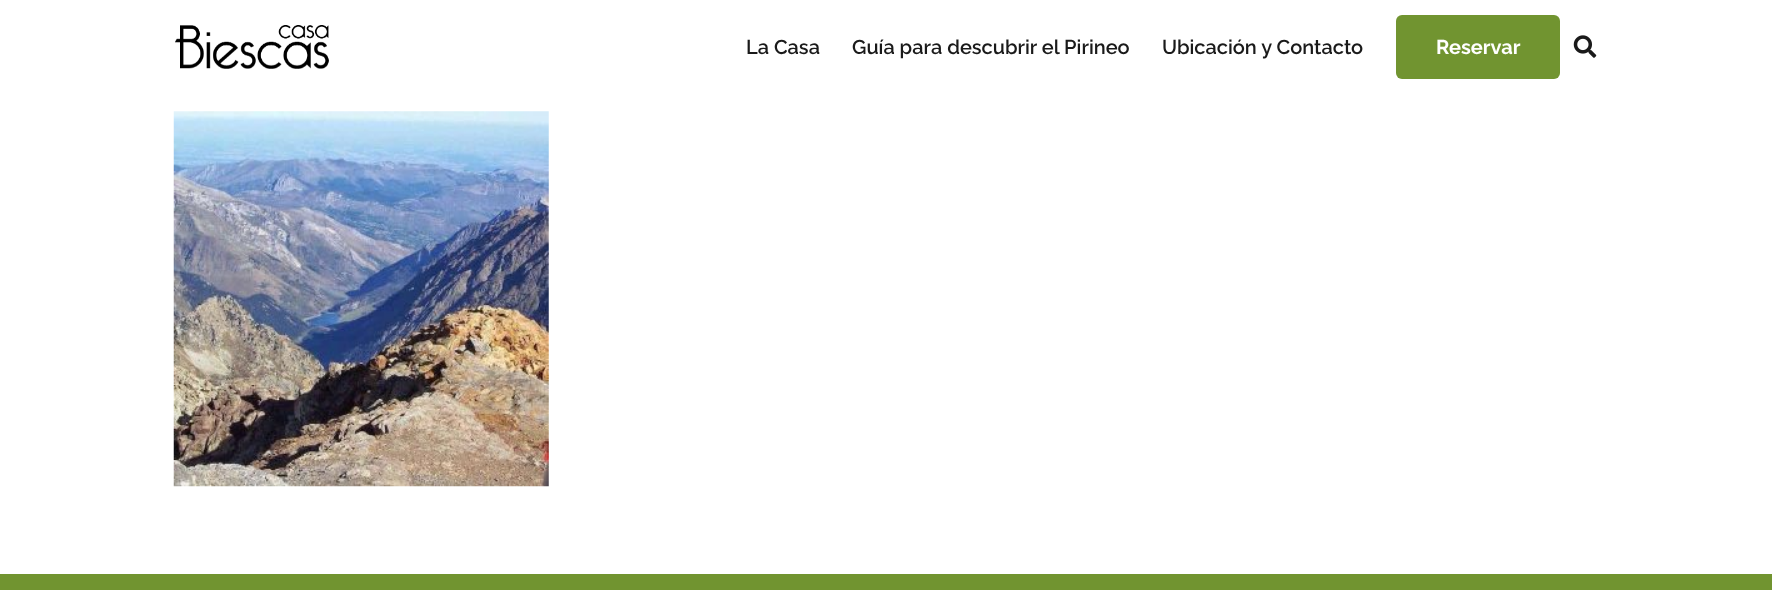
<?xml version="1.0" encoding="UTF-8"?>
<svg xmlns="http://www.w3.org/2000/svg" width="1772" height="590">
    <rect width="100%" height="100%" fill="#FFFFFF"/>
    <image x="175" y="25" width="154" height="44" href="img_01.png"/>
    <text x="746" y="54" font-family="Raleway" font-size="20" font-weight="600" fill="#1A1A1A">La Casa</text>
    <text x="852" y="54" font-family="Raleway" font-size="20" font-weight="600" fill="#1A1A1A">Guía para descubrir el Pirineo</text>
    <text x="1162" y="54" font-family="Raleway" font-size="20" font-weight="600" fill="#1A1A1A">Ubicación y Contacto</text>
    <rect x="1396" y="15" width="164" height="64" rx="6" fill="#719430"/>
    <text x="1436" y="54" font-family="Raleway" font-size="20" font-weight="700" fill="#FFFFFF">Reservar</text>
    <image x="1573" y="35" width="24" height="23" href="img_02.png"/>
    <image x="173" y="111" width="376" height="376" href="img_03.png"/>
    <rect x="0" y="574" width="1772" height="16" fill="#719430"/>
</svg>
